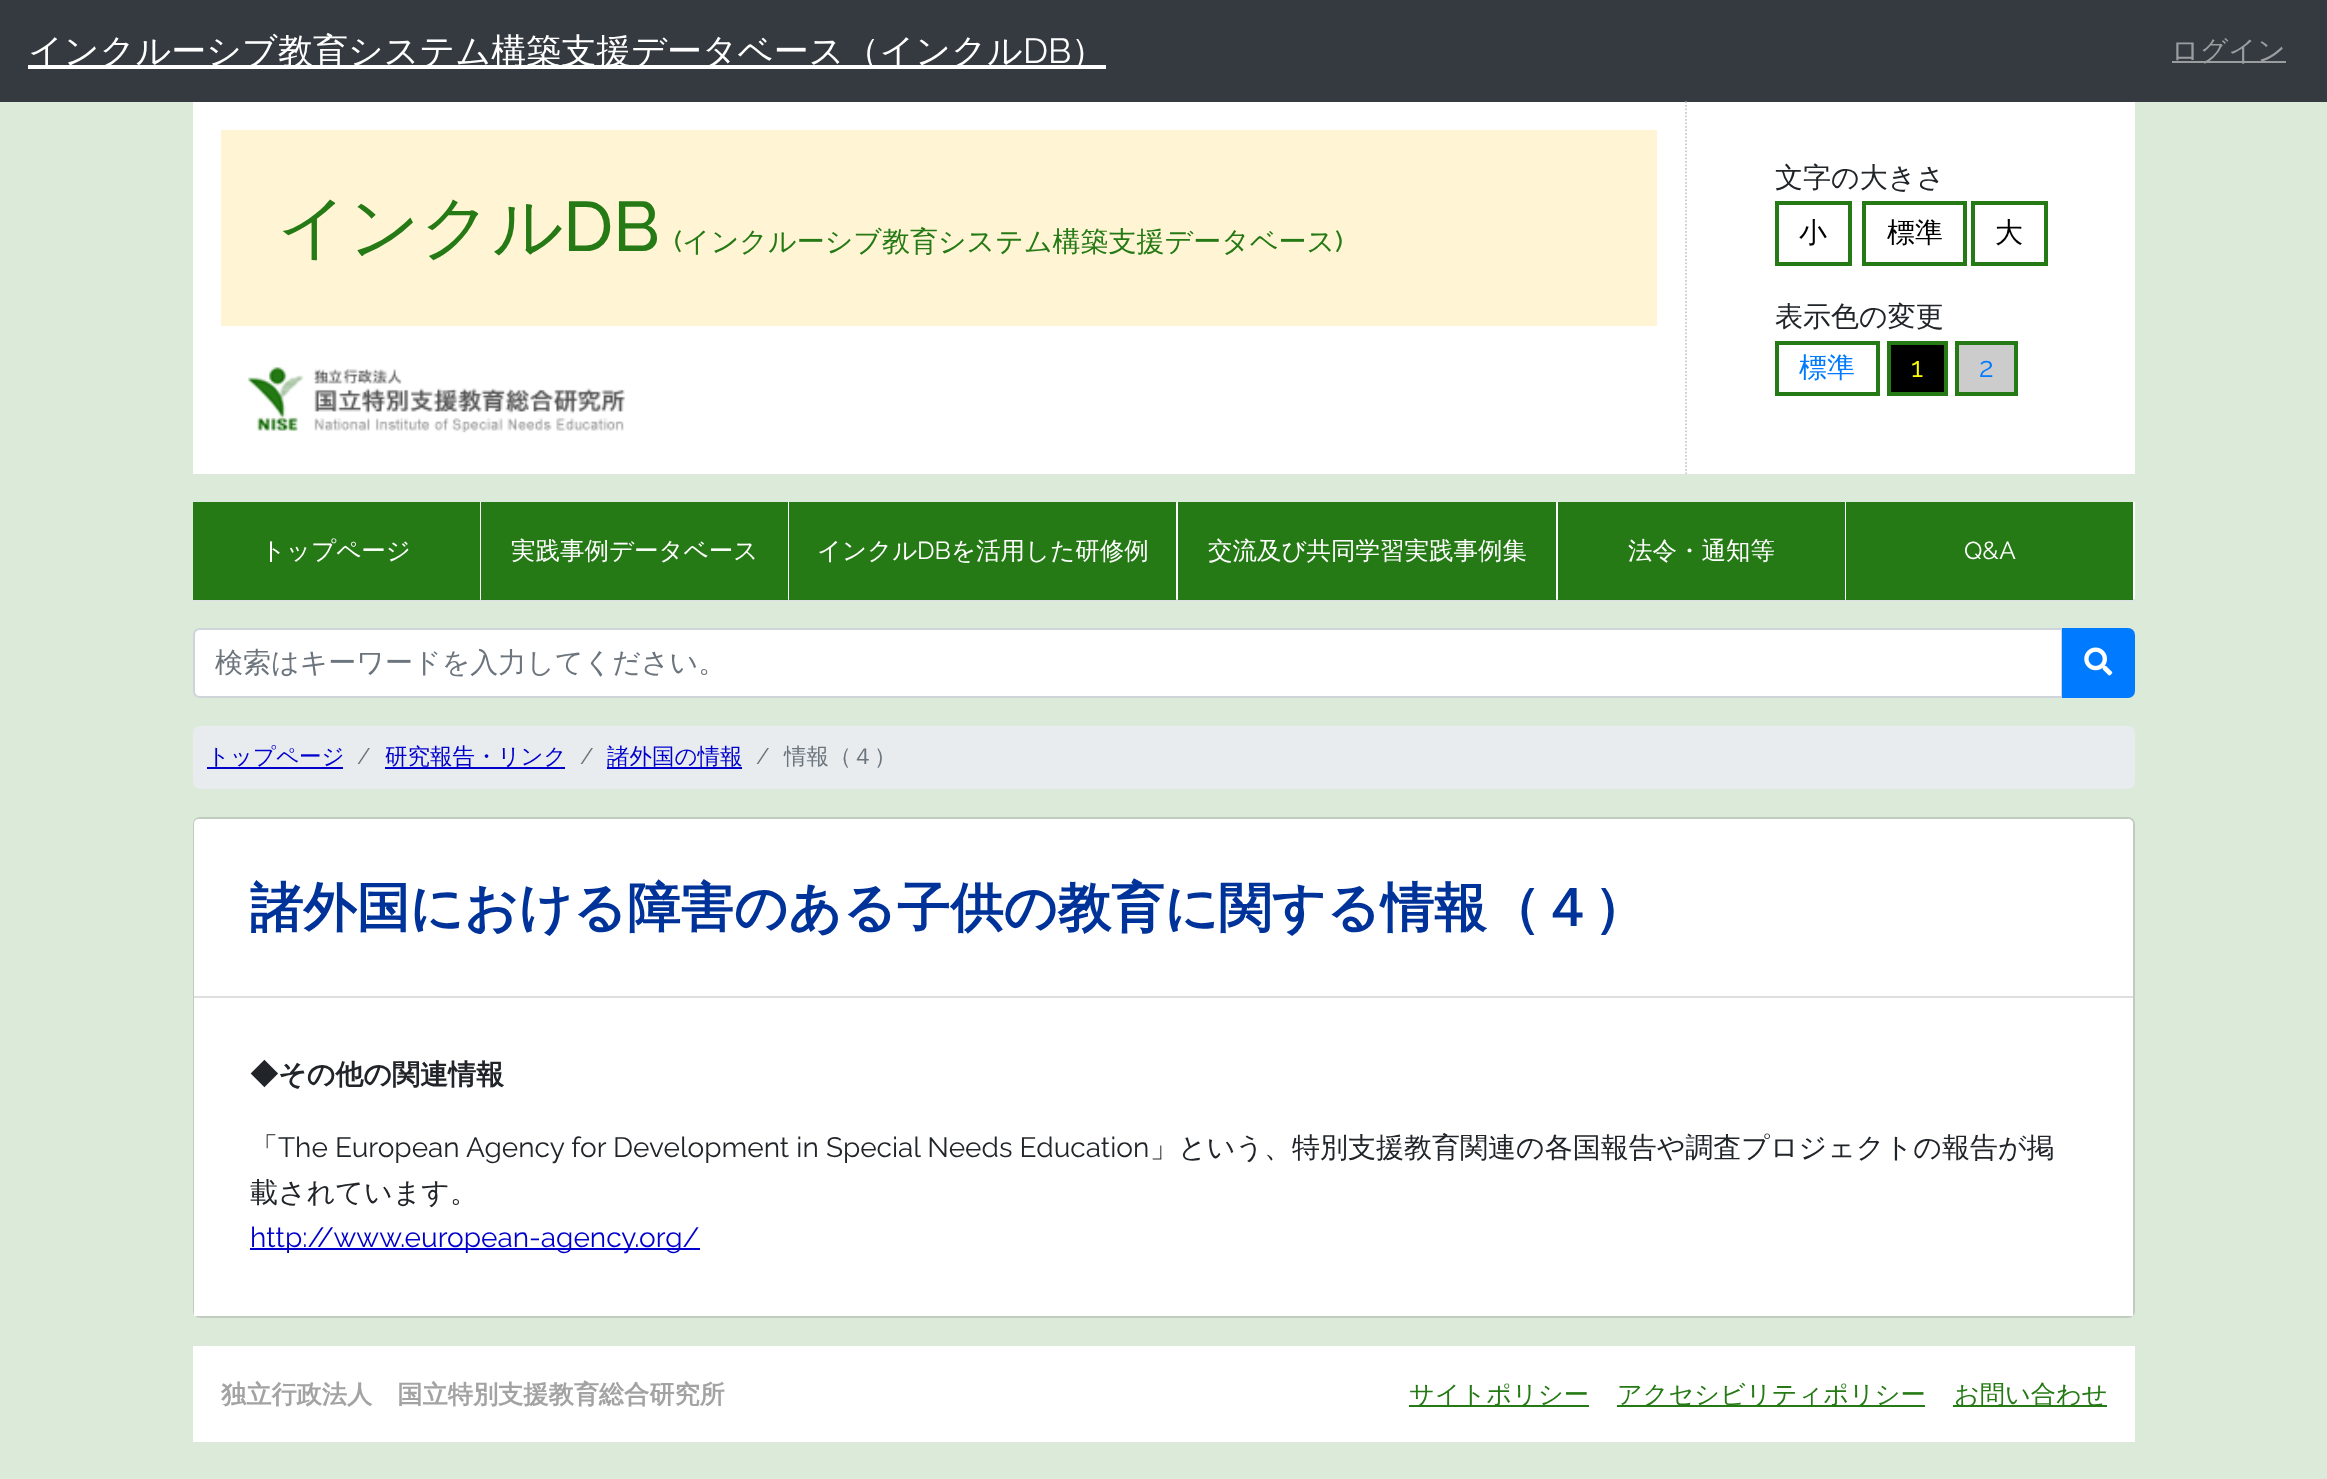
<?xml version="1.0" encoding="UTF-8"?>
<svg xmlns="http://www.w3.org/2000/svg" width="2327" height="1479">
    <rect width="100%" height="100%" fill="#DBEAD9"/>
    <rect x="0" y="0" width="2327" height="102" fill="#343A40"/>
    <rect x="28" y="65" width="1078" height="4" fill="#FFFFFF"/>
    <text x="28" y="63" font-family="WenQuanYi Zen Hei" font-size="35" font-weight="500" fill="#FFFFFF">インクルーシブ教育システム構築支援データベース（インクル</text>
    <text x="1023" y="63" font-family="Raleway" font-size="35" fill="#FFFFFF">DB</text>
    <text x="1071" y="63" font-family="WenQuanYi Zen Hei" font-size="35" font-weight="500" fill="#FFFFFF">）</text>
    <rect x="2172" y="61" width="114" height="2" fill="#9A9DA0"/>
    <text x="2171" y="60" font-family="WenQuanYi Zen Hei" font-size="28" font-weight="500" fill="#9B9EA1">ログイン</text>
    <rect x="193" y="102" width="1942" height="372" fill="#FFFFFF"/>
    <path d="M 1686 101.5 V 474" fill="none" stroke="#CCCCCC" stroke-width="1.8" stroke-dasharray="1.75 1.75"/>
    <rect x="221" y="130" width="1436" height="196" fill="#FFF4D4"/>
    <text x="277" y="251" font-family="WenQuanYi Zen Hei" font-size="70" font-weight="500" fill="#257A15">インクル</text>
    <text x="563" y="251" font-family="Raleway" font-size="70" font-weight="500" fill="#257A15">DB</text>
    <text x="674" y="251" font-family="Raleway" font-size="28" font-weight="500" fill="#257A15">(</text>
    <text x="682" y="251" font-family="WenQuanYi Zen Hei" font-size="28" font-weight="500" fill="#257A15">インクルーシブ教育システム構築支援データベース</text>
    <text x="1335" y="251" font-family="Raleway" font-size="28" font-weight="500" fill="#257A15">)</text>
    <image x="248" y="367" width="377" height="66" href="img_01.png"/>
    <text x="1775" y="187" font-family="WenQuanYi Zen Hei" font-size="28" font-weight="500" fill="#212529">文字の大きさ</text>
    <rect x="1777" y="203" width="73" height="61" fill="none" stroke="#257A15" stroke-width="4"/>
    <text x="1799" y="242" font-family="WenQuanYi Zen Hei" font-size="28" font-weight="500" fill="#000000">小</text>
    <rect x="1864" y="203" width="101" height="61" fill="none" stroke="#257A15" stroke-width="4"/>
    <text x="1887" y="242" font-family="WenQuanYi Zen Hei" font-size="28" font-weight="500" fill="#000000">標準</text>
    <rect x="1973" y="203" width="73" height="61" fill="none" stroke="#257A15" stroke-width="4"/>
    <text x="1995" y="242" font-family="WenQuanYi Zen Hei" font-size="28" font-weight="500" fill="#000000">大</text>
    <text x="1775" y="326" font-family="WenQuanYi Zen Hei" font-size="28" font-weight="500" fill="#212529">表示色の変更</text>
    <rect x="1777" y="343" width="101" height="51" fill="none" stroke="#257A15" stroke-width="4"/>
    <text x="1799" y="377" font-family="WenQuanYi Zen Hei" font-size="28" font-weight="500" fill="#007BFF">標準</text>
    <rect x="1889" y="343" width="57" height="51" fill="#000000" stroke="#257A15" stroke-width="4"/>
    <text x="1911" y="377" font-family="Raleway" font-size="28" fill="#FFFF00">1</text>
    <rect x="1957" y="343" width="59" height="51" fill="#CCCCCC" stroke="#257A15" stroke-width="4"/>
    <text x="1979" y="377" font-family="Raleway" font-size="28" fill="#007BFF">2</text>
    <rect x="193" y="599" width="1942" height="2" fill="#DEE2E6"/>
    <rect x="480" y="502" width="1" height="97" fill="#FFFFFF"/>
    <rect x="193" y="502" width="287" height="98" fill="#257A15"/>
    <text x="261" y="559" font-family="WenQuanYi Zen Hei" font-size="24.5" font-weight="500" fill="#FFFFFF">トップページ</text>
    <rect x="788" y="502" width="1" height="97" fill="#FFFFFF"/>
    <rect x="481" y="502" width="307" height="98" fill="#257A15"/>
    <text x="511" y="559" font-family="WenQuanYi Zen Hei" font-size="24.5" font-weight="500" fill="#FFFFFF">実践事例データベース</text>
    <rect x="1176" y="502" width="2" height="97" fill="#FFFFFF"/>
    <rect x="789" y="502" width="387" height="98" fill="#257A15"/>
    <text x="817" y="559" font-family="WenQuanYi Zen Hei" font-size="24.5" font-weight="500" fill="#FFFFFF">インクル</text>
    <text x="917" y="559" font-family="Raleway" font-size="24.5" fill="#FFFFFF">DB</text>
    <text x="951" y="559" font-family="WenQuanYi Zen Hei" font-size="24.5" font-weight="500" fill="#FFFFFF">を活用した研修例</text>
    <rect x="1556" y="502" width="2" height="97" fill="#FFFFFF"/>
    <rect x="1178" y="502" width="378" height="98" fill="#257A15"/>
    <text x="1208" y="559" font-family="WenQuanYi Zen Hei" font-size="24.5" font-weight="500" fill="#FFFFFF">交流及び共同学習実践事例集</text>
    <rect x="1845" y="502" width="1" height="97" fill="#FFFFFF"/>
    <rect x="1558" y="502" width="287" height="98" fill="#257A15"/>
    <text x="1628" y="559" font-family="WenQuanYi Zen Hei" font-size="24.5" font-weight="500" fill="#FFFFFF">法令・通知等</text>
    <rect x="2133" y="502" width="2" height="97" fill="#FFFFFF"/>
    <rect x="1846" y="502" width="287" height="98" fill="#257A15"/>
    <text x="1964" y="559" font-family="Raleway" font-size="24.5" fill="#FFFFFF">Q&amp;A</text>
    <path d="M 200 629 H 2062 V 697 H 200 C 196.5 697 194 694.5 194 691 V 635 C 194 631.5 196.5 629 200 629 Z" fill="#FFFFFF" stroke="#CED4DA" stroke-width="2"/>
    <text x="215" y="672" font-family="WenQuanYi Zen Hei" font-size="28" font-weight="500" fill="#6C757D">検索はキーワードを入力してください。</text>
    <path d="M 2063 629 H 2128 C 2131.5 629 2134 631.5 2134 635 V 691 C 2134 694.5 2131.5 697 2128 697 H 2063 Z" fill="#007BFF" stroke="#007BFF" stroke-width="2"/>
    <image x="2084" y="647" width="29" height="29" href="img_02.png"/>
    <rect x="193" y="726" width="1942" height="63" rx="7" fill="#E9ECEF"/>
    <text x="207" y="764" font-family="WenQuanYi Zen Hei" font-size="22.5" font-weight="500" fill="#0000CC">トップページ</text>
    <rect x="207" y="767" width="136" height="2" fill="#0000CC"/>
    <text x="357" y="764" font-family="Raleway" font-size="22.5" fill="#6C757D">/</text>
    <rect x="385" y="767" width="180" height="2" fill="#0000CC"/>
    <text x="385" y="764" font-family="WenQuanYi Zen Hei" font-size="22.5" font-weight="500" fill="#0000CC">研究報告・リンク</text>
    <text x="580" y="764" font-family="Raleway" font-size="22.5" fill="#6C757D">/</text>
    <text x="607" y="764" font-family="WenQuanYi Zen Hei" font-size="22.5" font-weight="500" fill="#0000CC">諸外国の情報</text>
    <rect x="607" y="767" width="135" height="2" fill="#0000CC"/>
    <text x="756" y="764" font-family="Raleway" font-size="22.5" fill="#6C757D">/</text>
    <text x="784" y="764" font-family="WenQuanYi Zen Hei" font-size="22.5" font-weight="500" fill="#6C757D">情報（４）</text>
    <rect x="194" y="818" width="1940" height="499" rx="6" fill="none" stroke="#C0CDBE" stroke-width="2"/>
    <path d="M 199 819 H 2128 C 2131 819 2133 821 2133 824 V 998 H 194 V 824 C 194 821 196 819 199 819 Z" fill="#FFFFFF"/>
    <rect x="194" y="996" width="1939" height="2" fill="#DFDFDF"/>
    <text x="250" y="926" font-family="WenQuanYi Zen Hei" font-size="53.2" font-weight="700" fill="#003399">諸外国における障害のある子供の教育に関する情報（４）</text>
    <rect x="194" y="998" width="1939" height="318" fill="#FFFFFF"/>
    <text x="250" y="1084" font-family="WenQuanYi Zen Hei" font-size="28" font-weight="700" fill="#212529">◆その他の関連情報</text>
    <text x="250" y="1157" font-family="WenQuanYi Zen Hei" font-size="28" font-weight="500" fill="#212529">「</text>
    <text x="278" y="1157" font-family="Raleway" font-size="28" fill="#212529">The European Agency for Development in Special Needs Education</text>
    <text x="1150" y="1157" font-family="WenQuanYi Zen Hei" font-size="28" font-weight="500" fill="#212529">」という、特別支援教育関連の各国報告や調査プロジェクトの報告が掲</text>
    <text x="250" y="1202" font-family="WenQuanYi Zen Hei" font-size="28" font-weight="500" fill="#212529">載されています。</text>
    <rect x="250" y="1248" width="450" height="2" fill="#0000CC"/>
    <text x="250" y="1247" font-family="Raleway" font-size="28" fill="#0000CC">http://www.european-agency.org/</text>
    <rect x="193" y="1346" width="1942" height="96" fill="#FFFFFF"/>
    <text x="221" y="1403" font-family="WenQuanYi Zen Hei" font-size="25.2" font-weight="700" fill="#A3A3A3">独立行政法人　国立特別支援教育総合研究所</text>
    <rect x="1409" y="1405" width="180" height="2" fill="#257A15"/>
    <text x="1409" y="1403" font-family="WenQuanYi Zen Hei" font-size="25.2" font-weight="500" fill="#257A15">サイトポリシー</text>
    <rect x="1617" y="1405" width="308" height="2" fill="#257A15"/>
    <text x="1617" y="1403" font-family="WenQuanYi Zen Hei" font-size="25.2" font-weight="500" fill="#257A15">アクセシビリティポリシー</text>
    <rect x="1953" y="1405" width="154" height="2" fill="#257A15"/>
    <text x="1954" y="1403" font-family="WenQuanYi Zen Hei" font-size="25.2" font-weight="500" fill="#257A15">お問い合わせ</text>
</svg>
